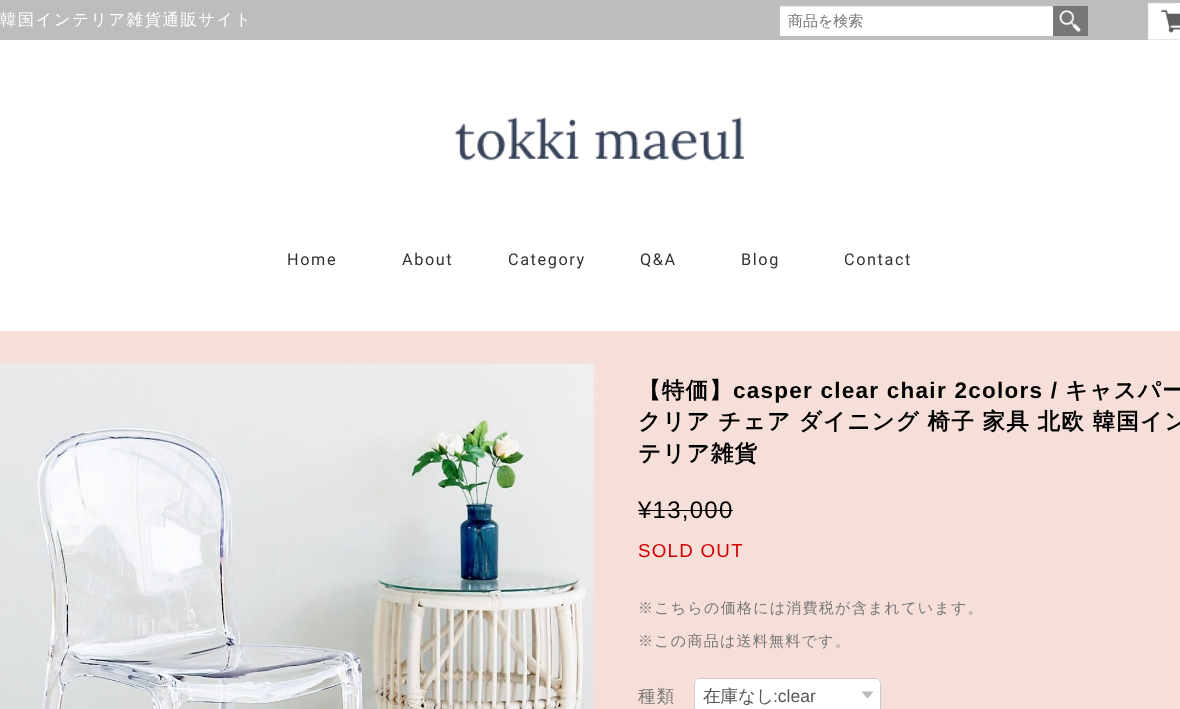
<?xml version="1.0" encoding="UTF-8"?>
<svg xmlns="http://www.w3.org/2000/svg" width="1180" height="709">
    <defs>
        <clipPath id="clip1"><rect x="703" y="685" width="160" height="20"/></clipPath>
    </defs>
    <rect width="100%" height="100%" fill="#F7DFD9"/>
    <rect x="0" y="0" width="1180" height="40" fill="#BDBDBD"/>
    <text x="0" y="25" font-family="WenQuanYi Zen Hei" font-size="16.25" font-weight="500" letter-spacing="1.6" fill="#FFFFFF">韓国インテリア雑貨通販サイト</text>
    <rect x="0" y="40" width="1180" height="291" fill="#FFFFFF"/>
    <rect x="780" y="7" width="273" height="29" fill="#FFFFFF"/>
    <rect x="780" y="6" width="273" height="1" fill="#ECECEC"/>
    <text x="788" y="26" font-family="WenQuanYi Zen Hei" font-size="15" font-weight="500" fill="#777777">商品を検索</text>
    <rect x="1053" y="6" width="35" height="30" fill="#777777"/>
    <image x="1059" y="10" width="22" height="22" href="img_01.png"/>
    <rect x="1148" y="3" width="32" height="37" fill="#FFFFFF"/>
    <path d="M 1147.5 3 H 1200 M 1147.5 39.5 H 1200 M 1148 2.5 V 40" fill="none" stroke="#CCCCCC" stroke-width="1.2" stroke-dasharray="1.25 1.25"/>
    <image x="1161" y="9" width="19" height="24" href="img_02.png"/>
    <image x="455" y="117" width="289" height="44" href="img_03.png"/>
    <text x="287" y="265" font-family="Roboto" font-size="16.25" letter-spacing="1.6" fill="#333333">Home</text>
    <text x="402" y="265" font-family="Roboto" font-size="16.25" letter-spacing="1.6" fill="#333333">About</text>
    <text x="508" y="265" font-family="Roboto" font-size="16.25" letter-spacing="1.6" fill="#333333">Category</text>
    <text x="640" y="265" font-family="Roboto" font-size="16.25" letter-spacing="1.6" fill="#333333">Q&amp;A</text>
    <text x="741" y="265" font-family="Roboto" font-size="16.25" letter-spacing="1.6" fill="#333333">Blog</text>
    <text x="844" y="265" font-family="Roboto" font-size="16.25" letter-spacing="1.6" fill="#333333">Contact</text>
    <image x="0" y="363" width="594" height="346" href="img_04.png"/>
    <text x="638" y="398" font-family="WenQuanYi Zen Hei" font-size="22.5" font-weight="700" letter-spacing="1.25" fill="#000000">【特価】</text>
    <text x="733" y="398" font-family="Liberation Sans" font-size="22.5" font-weight="700" letter-spacing="1.25" fill="#000000">casper clear chair 2colors /</text>
    <text x="1065" y="398" font-family="WenQuanYi Zen Hei" font-size="22.5" font-weight="700" letter-spacing="1.25" fill="#000000">キャスパー</text>
    <text font-family="WenQuanYi Zen Hei" font-size="22.5" font-weight="700" letter-spacing="1.25" fill="#000000">
        <tspan x="638" y="429" word-spacing="-0.5">クリア チェア ダイニング 椅子 家具 北欧 韓国イン</tspan>
        <tspan x="638" y="461">テリア雑貨</tspan>
    </text>
    <text x="638" y="518" font-family="Liberation Sans" font-size="24" letter-spacing="1.25" fill="#000000">¥13,000</text>
    <rect x="638" y="510" width="95" height="1" fill="#000000"/>
    <text x="638" y="557" font-family="Liberation Sans" font-size="18.75" letter-spacing="1.25" fill="#D30000">SOLD OUT</text>
    <text x="638" y="613" font-family="WenQuanYi Zen Hei" font-size="15" font-weight="500" letter-spacing="1.25" fill="#777777">※こちらの価格には消費税が含まれています。</text>
    <text x="638" y="646" font-family="WenQuanYi Zen Hei" font-size="15" font-weight="500" letter-spacing="1.25" fill="#777777">※この商品は送料無料です。</text>
    <text x="638" y="702" font-family="WenQuanYi Zen Hei" font-size="17.5" font-weight="500" letter-spacing="1.25" fill="#777777">種類</text>
    <rect x="694" y="678" width="187" height="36" rx="5" fill="#FFFFFF"/>
    <image x="861" y="691" width="13" height="8" href="img_05.png"/>
    <rect x="694.5" y="678.5" width="186" height="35" rx="4.5" fill="none" stroke="#CCCCCC"/>
    <g clip-path="url(#clip1)">
        <text x="703" y="702" font-family="WenQuanYi Zen Hei" font-size="17.5" font-weight="500" fill="#555555">在庫なし</text>
    </g>
    <text x="773" y="702" font-family="Liberation Sans" font-size="17.5" fill="#555555">:clear</text>
</svg>
